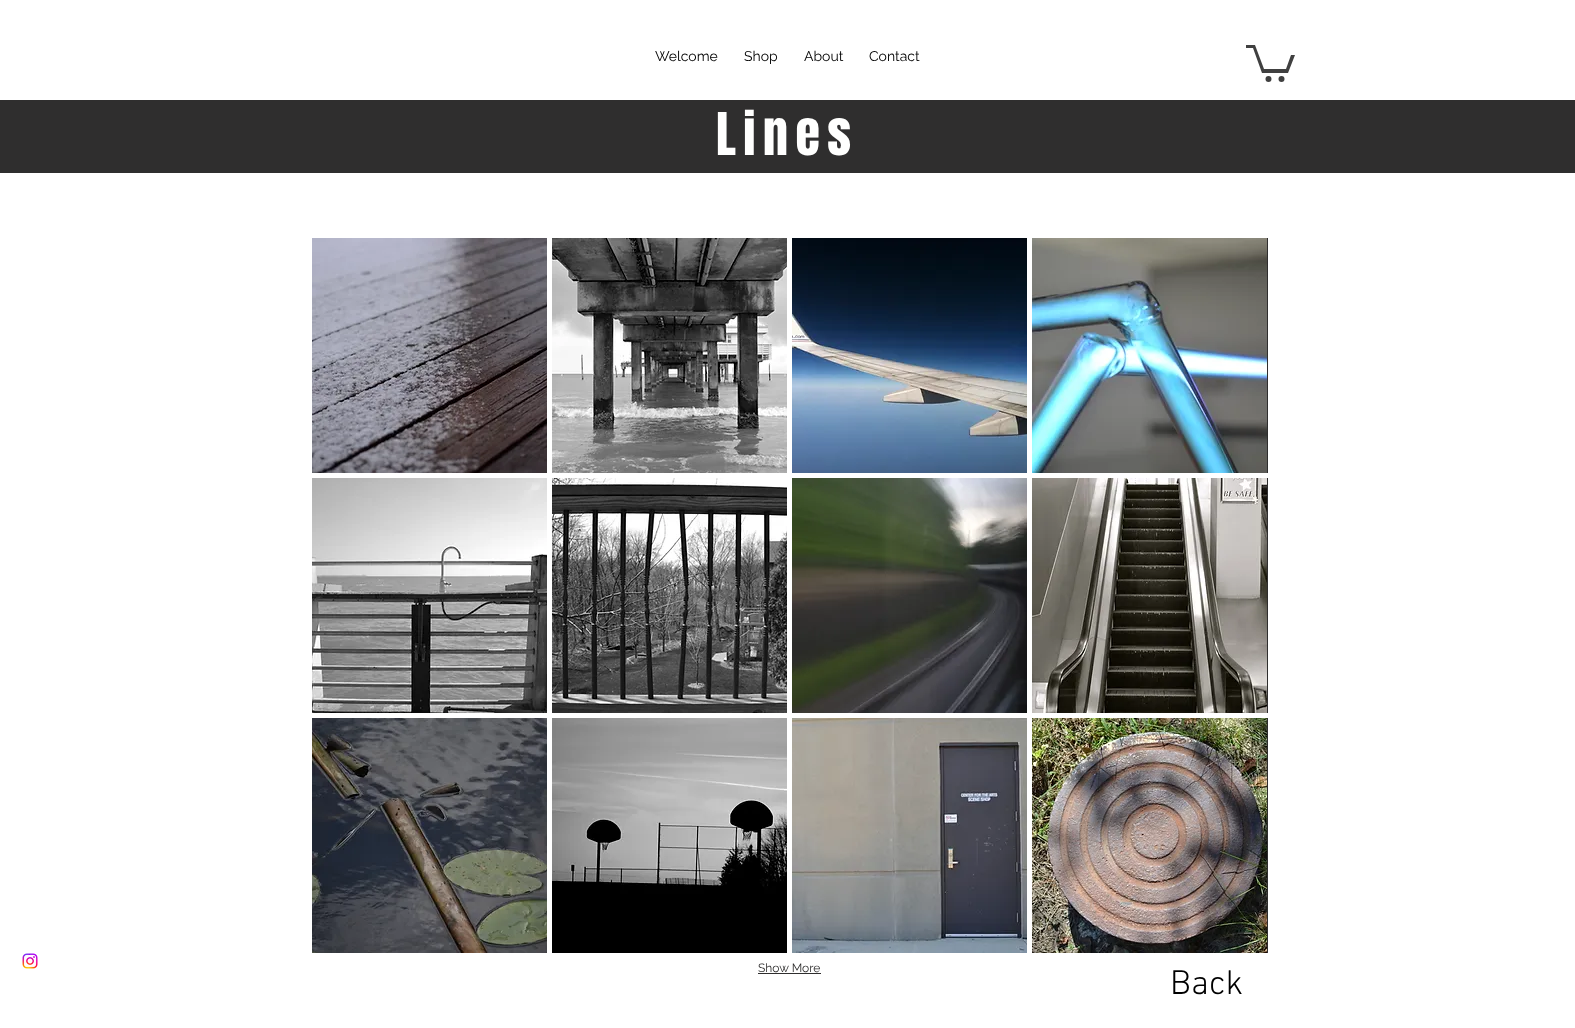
<?xml version="1.0" encoding="UTF-8"?>
<svg xmlns="http://www.w3.org/2000/svg" width="1575" height="1028">
    <rect width="100%" height="100%" fill="#FFFFFF"/>
    <text x="655" y="61" font-family="Raleway" font-size="14" fill="#000000">Welcome</text>
    <text x="744" y="61" font-family="Raleway" font-size="14" fill="#000000">Shop</text>
    <text x="804" y="61" font-family="Raleway" font-size="14" fill="#000000">About</text>
    <text x="869" y="61" font-family="Raleway" font-size="14" fill="#000000">Contact</text>
    <path d="M 1295 55 L 1288 73 H 1262 L 1253 48 H 1246 V 45 H 1255 L 1264 69 H 1286 L 1291 55" fill="#404040"/>
    <circle cx="1281.5" cy="79" r="3" fill="#404040"/>
    <circle cx="1268.5" cy="79" r="3" fill="#404040"/>
    <image x="22" y="953" width="16" height="16" href="img_01.png"/>
    <rect x="0" y="100" width="1575" height="73" fill="#2F2E2E"/>
    <text x="716" y="155" font-family="Anton" font-size="50" letter-spacing="7.5" fill="#FFFFFE">Lines</text>
    <image x="312" y="238" width="235" height="235" href="img_02.png"/>
    <image x="552" y="238" width="235" height="235" href="img_03.png"/>
    <image x="792" y="238" width="235" height="235" href="img_04.png"/>
    <rect x="1267" y="238" width="1" height="235" fill="#2F2E2E"/>
    <image x="1032" y="238" width="235" height="235" href="img_05.png"/>
    <image x="312" y="478" width="235" height="235" href="img_06.png"/>
    <image x="552" y="478" width="235" height="235" href="img_07.png"/>
    <image x="792" y="478" width="235" height="235" href="img_08.png"/>
    <rect x="1267" y="478" width="1" height="235" fill="#2F2E2E"/>
    <image x="1032" y="478" width="235" height="235" href="img_09.png"/>
    <image x="312" y="718" width="235" height="235" href="img_10.png"/>
    <image x="552" y="718" width="235" height="235" href="img_11.png"/>
    <image x="792" y="718" width="235" height="235" href="img_12.png"/>
    <rect x="1267" y="718" width="1" height="235" fill="#2F2E2E"/>
    <image x="1032" y="718" width="235" height="235" href="img_13.png"/>
    <text x="758" y="972" font-family="Raleway" font-size="12" fill="#2F2E2E">Show More</text>
    <rect x="758" y="973" width="63" height="1" fill="#2F2E2E"/>
    <text x="1170" y="994" font-family="'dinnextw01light'" font-size="35" font-weight="300" fill="#000000">Back</text>
</svg>
